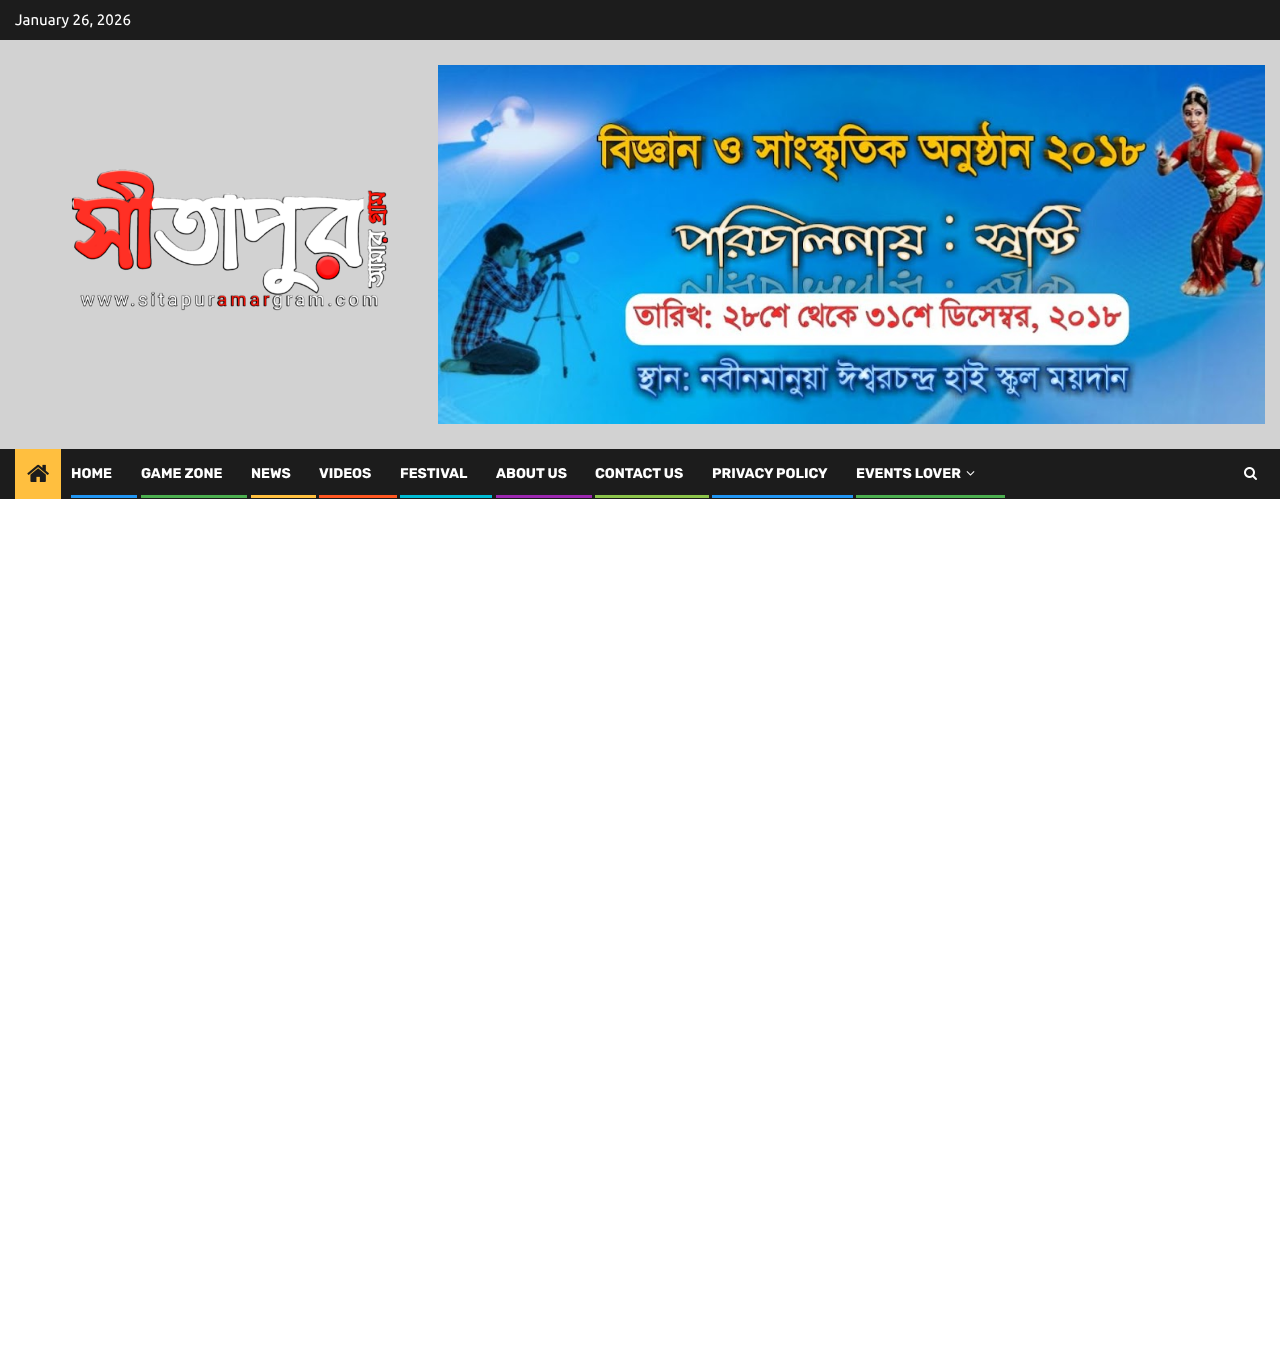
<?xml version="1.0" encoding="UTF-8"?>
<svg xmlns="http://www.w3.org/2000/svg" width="1280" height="1352">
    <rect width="100%" height="100%" fill="#FFFFFF"/>
    <rect x="0" y="40" width="1280" height="409" fill="#D2D2D2"/>
    <rect x="0" y="0" width="1280" height="40" fill="#1C1C1C"/>
    <text x="15" y="25" font-family="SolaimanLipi" font-size="15" fill="#FFFFFF">January 26, 2026</text>
    <image x="71" y="169" width="318" height="142" href="img_01.png"/>
    <image x="438" y="65" width="827" height="359" href="img_02.png"/>
    <rect x="0" y="449" width="1280" height="50" fill="#1C1C1C"/>
    <rect x="15" y="449" width="46" height="50" fill="#FFBF3F"/>
    <image x="27" y="464" width="22" height="18" href="img_03.png"/>
    <text x="71" y="478" font-family="Rubik" font-size="14" font-weight="700" fill="#FFFFFF">HOME</text>
    <rect x="71" y="495" width="66" height="3" fill="#2196F3"/>
    <text x="141" y="478" font-family="Rubik" font-size="14" font-weight="700" fill="#FFFFFF">GAME ZONE</text>
    <rect x="141" y="495" width="106" height="3" fill="#4CAF50"/>
    <text x="251" y="478" font-family="Rubik" font-size="14" font-weight="700" fill="#FFFFFF">NEWS</text>
    <rect x="251" y="495" width="65" height="3" fill="#FFBF3F"/>
    <text x="319" y="478" font-family="Rubik" font-size="14" font-weight="700" fill="#FFFFFF">VIDEOS</text>
    <rect x="319" y="495" width="78" height="3" fill="#FF5722"/>
    <text x="400" y="478" font-family="Rubik" font-size="14" font-weight="700" fill="#FFFFFF">FESTIVAL</text>
    <rect x="400" y="495" width="92" height="3" fill="#00BCD4"/>
    <text x="496" y="478" font-family="Rubik" font-size="14" font-weight="700" fill="#FFFFFF">ABOUT US</text>
    <rect x="496" y="495" width="96" height="3" fill="#9C27B0"/>
    <text x="595" y="478" font-family="Rubik" font-size="14" font-weight="700" fill="#FFFFFF">CONTACT US</text>
    <rect x="595" y="495" width="114" height="3" fill="#8BC34A"/>
    <text x="712" y="478" font-family="Rubik" font-size="14" font-weight="700" fill="#FFFFFF">PRIVACY POLICY</text>
    <rect x="712" y="495" width="141" height="3" fill="#2196F3"/>
    <text x="856" y="478" font-family="Rubik" font-size="14" font-weight="700" fill="#FFFFFF">EVENTS LOVER</text>
    <image x="966" y="471" width="9" height="5" href="img_04.png"/>
    <rect x="856" y="495" width="149" height="3" fill="#4CAF50"/>
    <image x="1244" y="467" width="13" height="13" href="img_05.png"/>
</svg>
